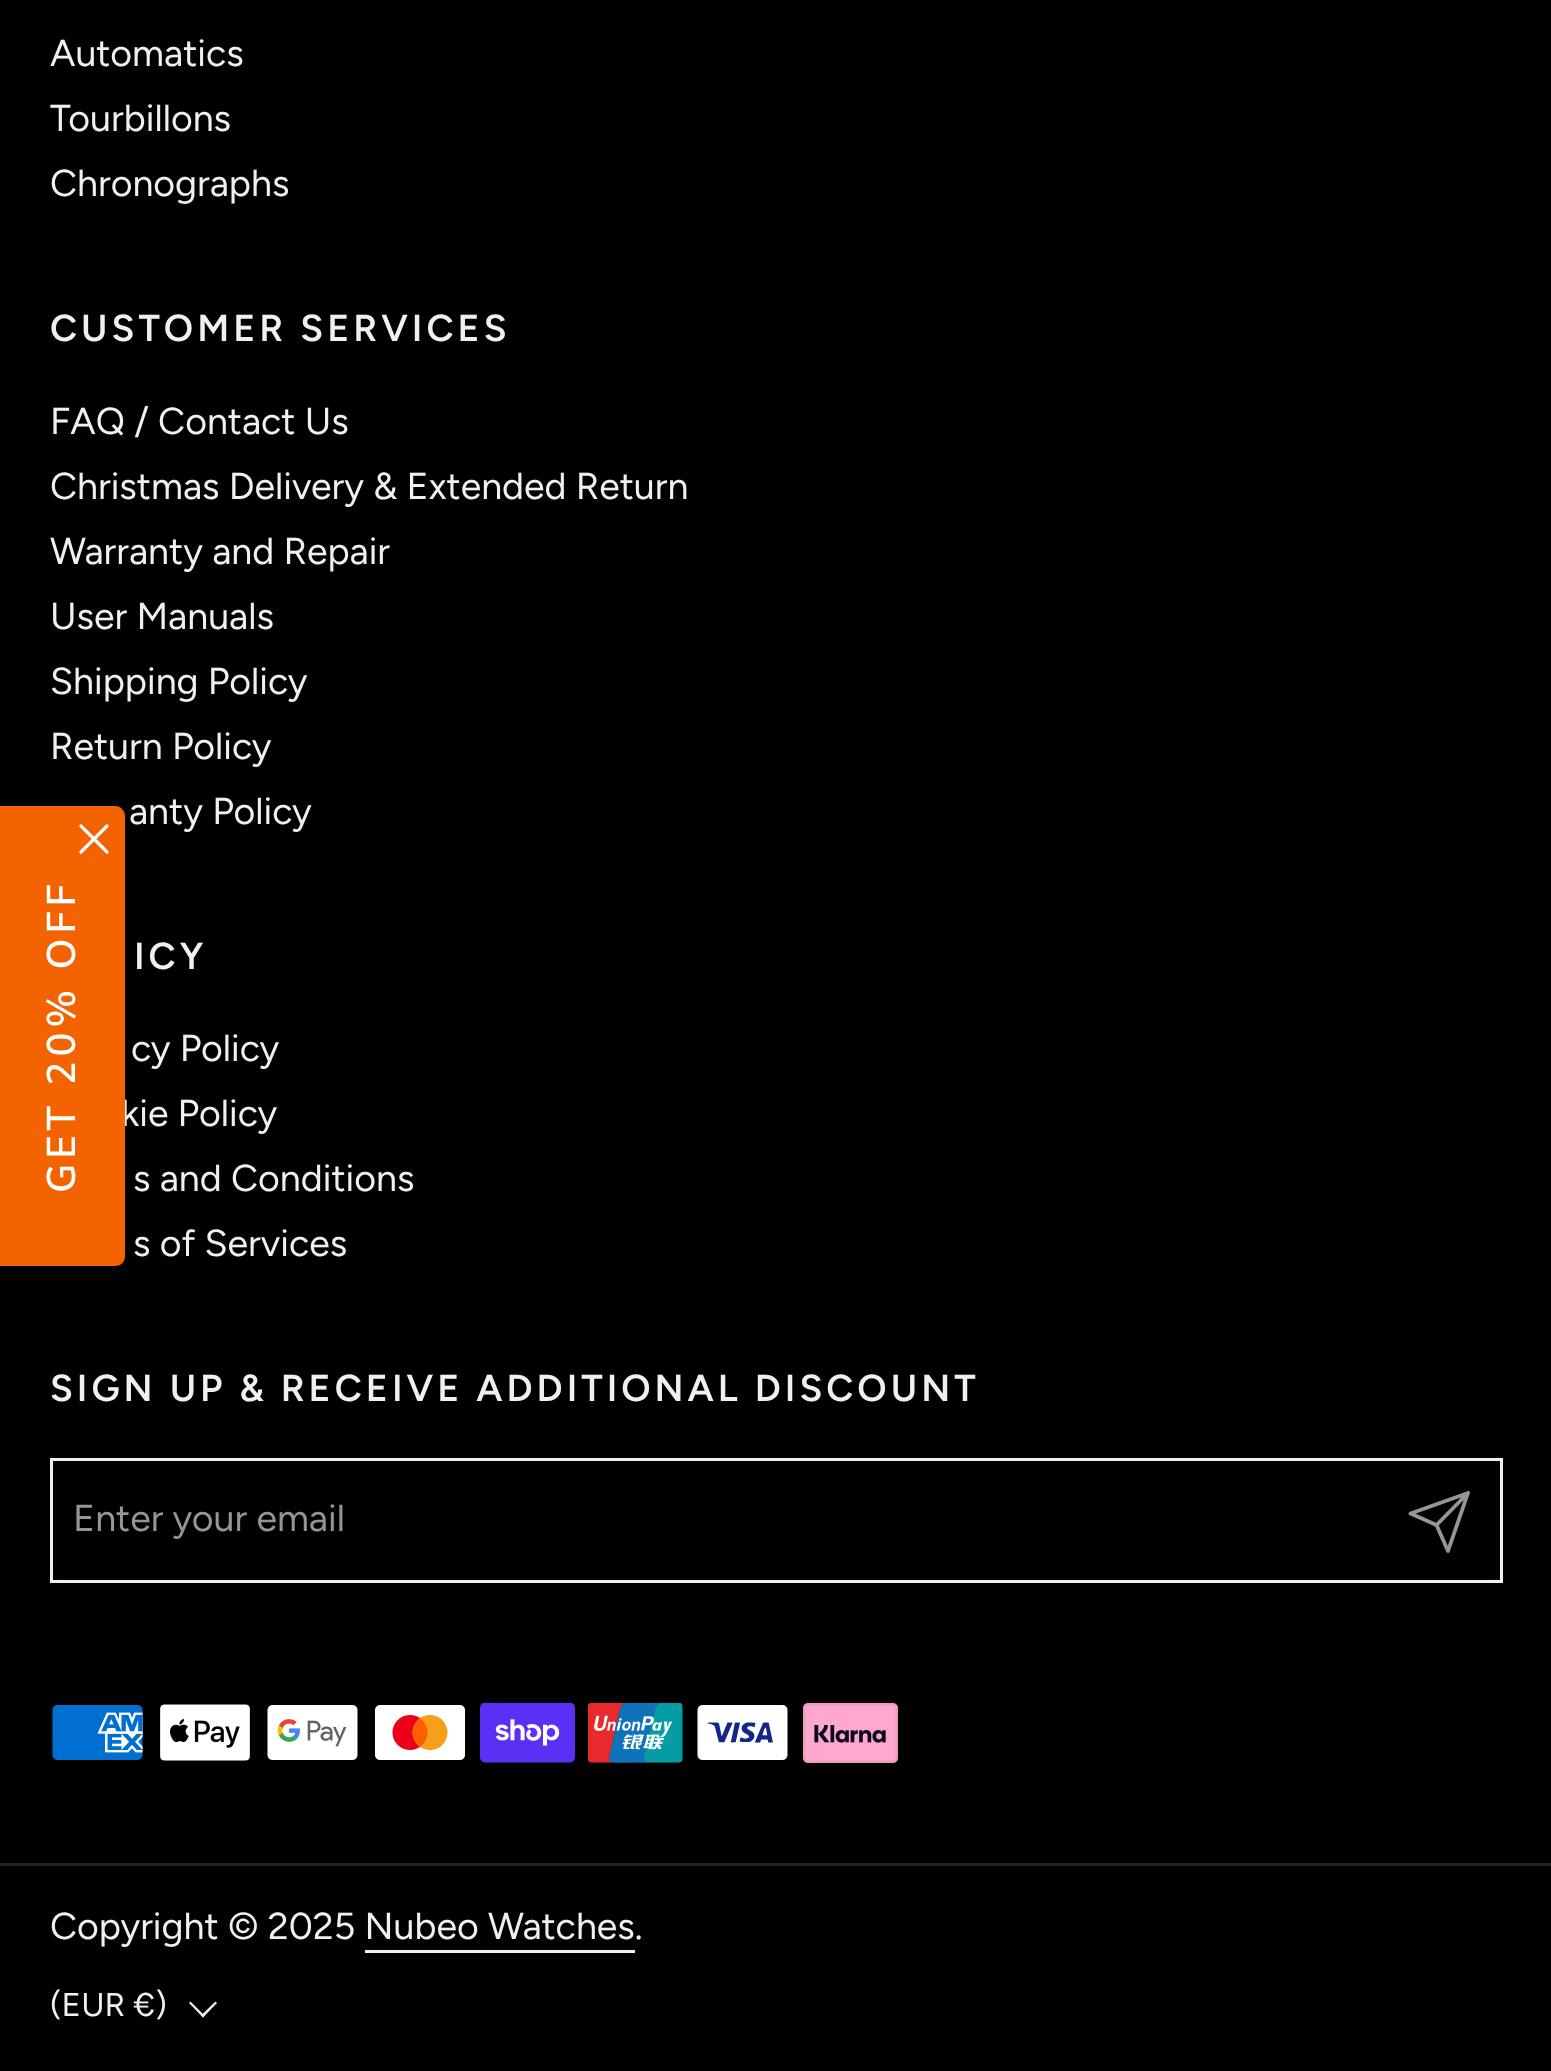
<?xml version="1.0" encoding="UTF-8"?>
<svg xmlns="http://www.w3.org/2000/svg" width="1551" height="2071">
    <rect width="100%" height="100%" fill="#000000"/>
    <text font-family="Figtree" font-size="37.5" fill="#EEF1F2">
        <tspan x="50" y="66">Automatics</tspan>
        <tspan x="50" y="131">Tourbillons</tspan>
        <tspan x="50" y="196">Chronographs</tspan>
    </text>
    <text x="50" y="341" font-family="Figtree" font-size="37.5" font-weight="600" letter-spacing="4" fill="#EEF1F2">CUSTOMER SERVICES</text>
    <text font-family="Figtree" font-size="37.5" fill="#EEF1F2">
        <tspan x="50" y="434">FAQ / Contact Us</tspan>
        <tspan x="50" y="499">Christmas Delivery &amp; Extended Return</tspan>
        <tspan x="50" y="564">Warranty and Repair</tspan>
        <tspan x="50" y="629">User Manuals</tspan>
        <tspan x="50" y="694">Shipping Policy</tspan>
        <tspan x="50" y="759">Return Policy</tspan>
    </text>
    <text x="129" y="824" font-family="Figtree" font-size="37.5" fill="#EEF1F2">anty Policy</text>
    <text x="134" y="969" font-family="Figtree" font-size="37.5" font-weight="600" letter-spacing="4" fill="#EEF1F2">ICY</text>
    <text x="131" y="1061" font-family="Figtree" font-size="37.5" fill="#EEF1F2">cy Policy</text>
    <text x="121" y="1126" font-family="Figtree" font-size="37.5" fill="#EEF1F2">kie Policy</text>
    <text font-family="Figtree" font-size="37.5" fill="#EEF1F2">
        <tspan x="133" y="1191">s and Conditions</tspan>
        <tspan x="133" y="1256">s of Services</tspan>
    </text>
    <text x="50" y="1401" font-family="Figtree" font-size="37.5" font-weight="600" letter-spacing="4" fill="#EEF1F2">SIGN UP &amp; RECEIVE ADDITIONAL DISCOUNT</text>
    <rect x="51.5" y="1459.5" width="1450" height="122" fill="none" stroke="#EEF1F2" stroke-width="3"/>
    <text x="73" y="1531" font-family="Figtree" font-size="37.5" fill="#949596">Enter your email</text>
    <path d="M 1468 1493 L 1436.5 1525 M 1468 1493 L 1448 1551 L 1436.5 1525 L 1410.5 1513.5 Z" fill="none" stroke="#949596" stroke-width="3.8" stroke-linecap="round" stroke-linejoin="round"/>
    <image x="52" y="1705" width="91" height="55" href="img_01.png"/>
    <image x="160" y="1704" width="90" height="57" href="img_02.png"/>
    <image x="267" y="1705" width="91" height="55" href="img_03.png"/>
    <image x="375" y="1705" width="90" height="55" href="img_04.png"/>
    <image x="480" y="1703" width="95" height="60" href="img_05.png"/>
    <image x="588" y="1703" width="95" height="60" href="img_06.png"/>
    <image x="697" y="1705" width="91" height="55" href="img_07.png"/>
    <image x="803" y="1703" width="95" height="60" href="img_08.png"/>
    <rect x="0" y="1863" width="1551" height="3" fill="#242424"/>
    <text x="50" y="1939" font-family="Figtree" font-size="37.5" fill="#EEF1F2">Copyright © 2025 Nubeo Watches.</text>
    <rect x="365" y="1950" width="270" height="3" fill="#EEF1F2"/>
    <text x="50" y="2016" font-family="Figtree" font-size="33" fill="#EEF1F2">(EUR €)</text>
    <path d="M 190.5 2001.5 L 204.5 2015.5 L 203 2017.5 L 189 2003 Z" fill="#EEF1F2"/>
    <path d="M 217 2003 L 203 2017.5 L 201 2015.5 L 215.5 2001.5 Z" fill="#EEF1F2"/>
    <path d="M 0 1266 V 806 H 115 C 121 806 125 811 125 816 V 1256 C 125 1262 121 1266 115 1266 Z" fill="#F36300"/>
    <path d="M 81 852 L 107 826 M 107 852 L 81 826 Z" fill="none" stroke="#FFFFFF" stroke-width="3.2" stroke-linecap="round" stroke-linejoin="round"/>
    <text x="75" y="1193" transform="rotate(-90 75 1193)" font-family="Nunito Sans" font-size="40" font-weight="600" letter-spacing="5" fill="#FFFFFF">GET 20% OFF</text>
</svg>
